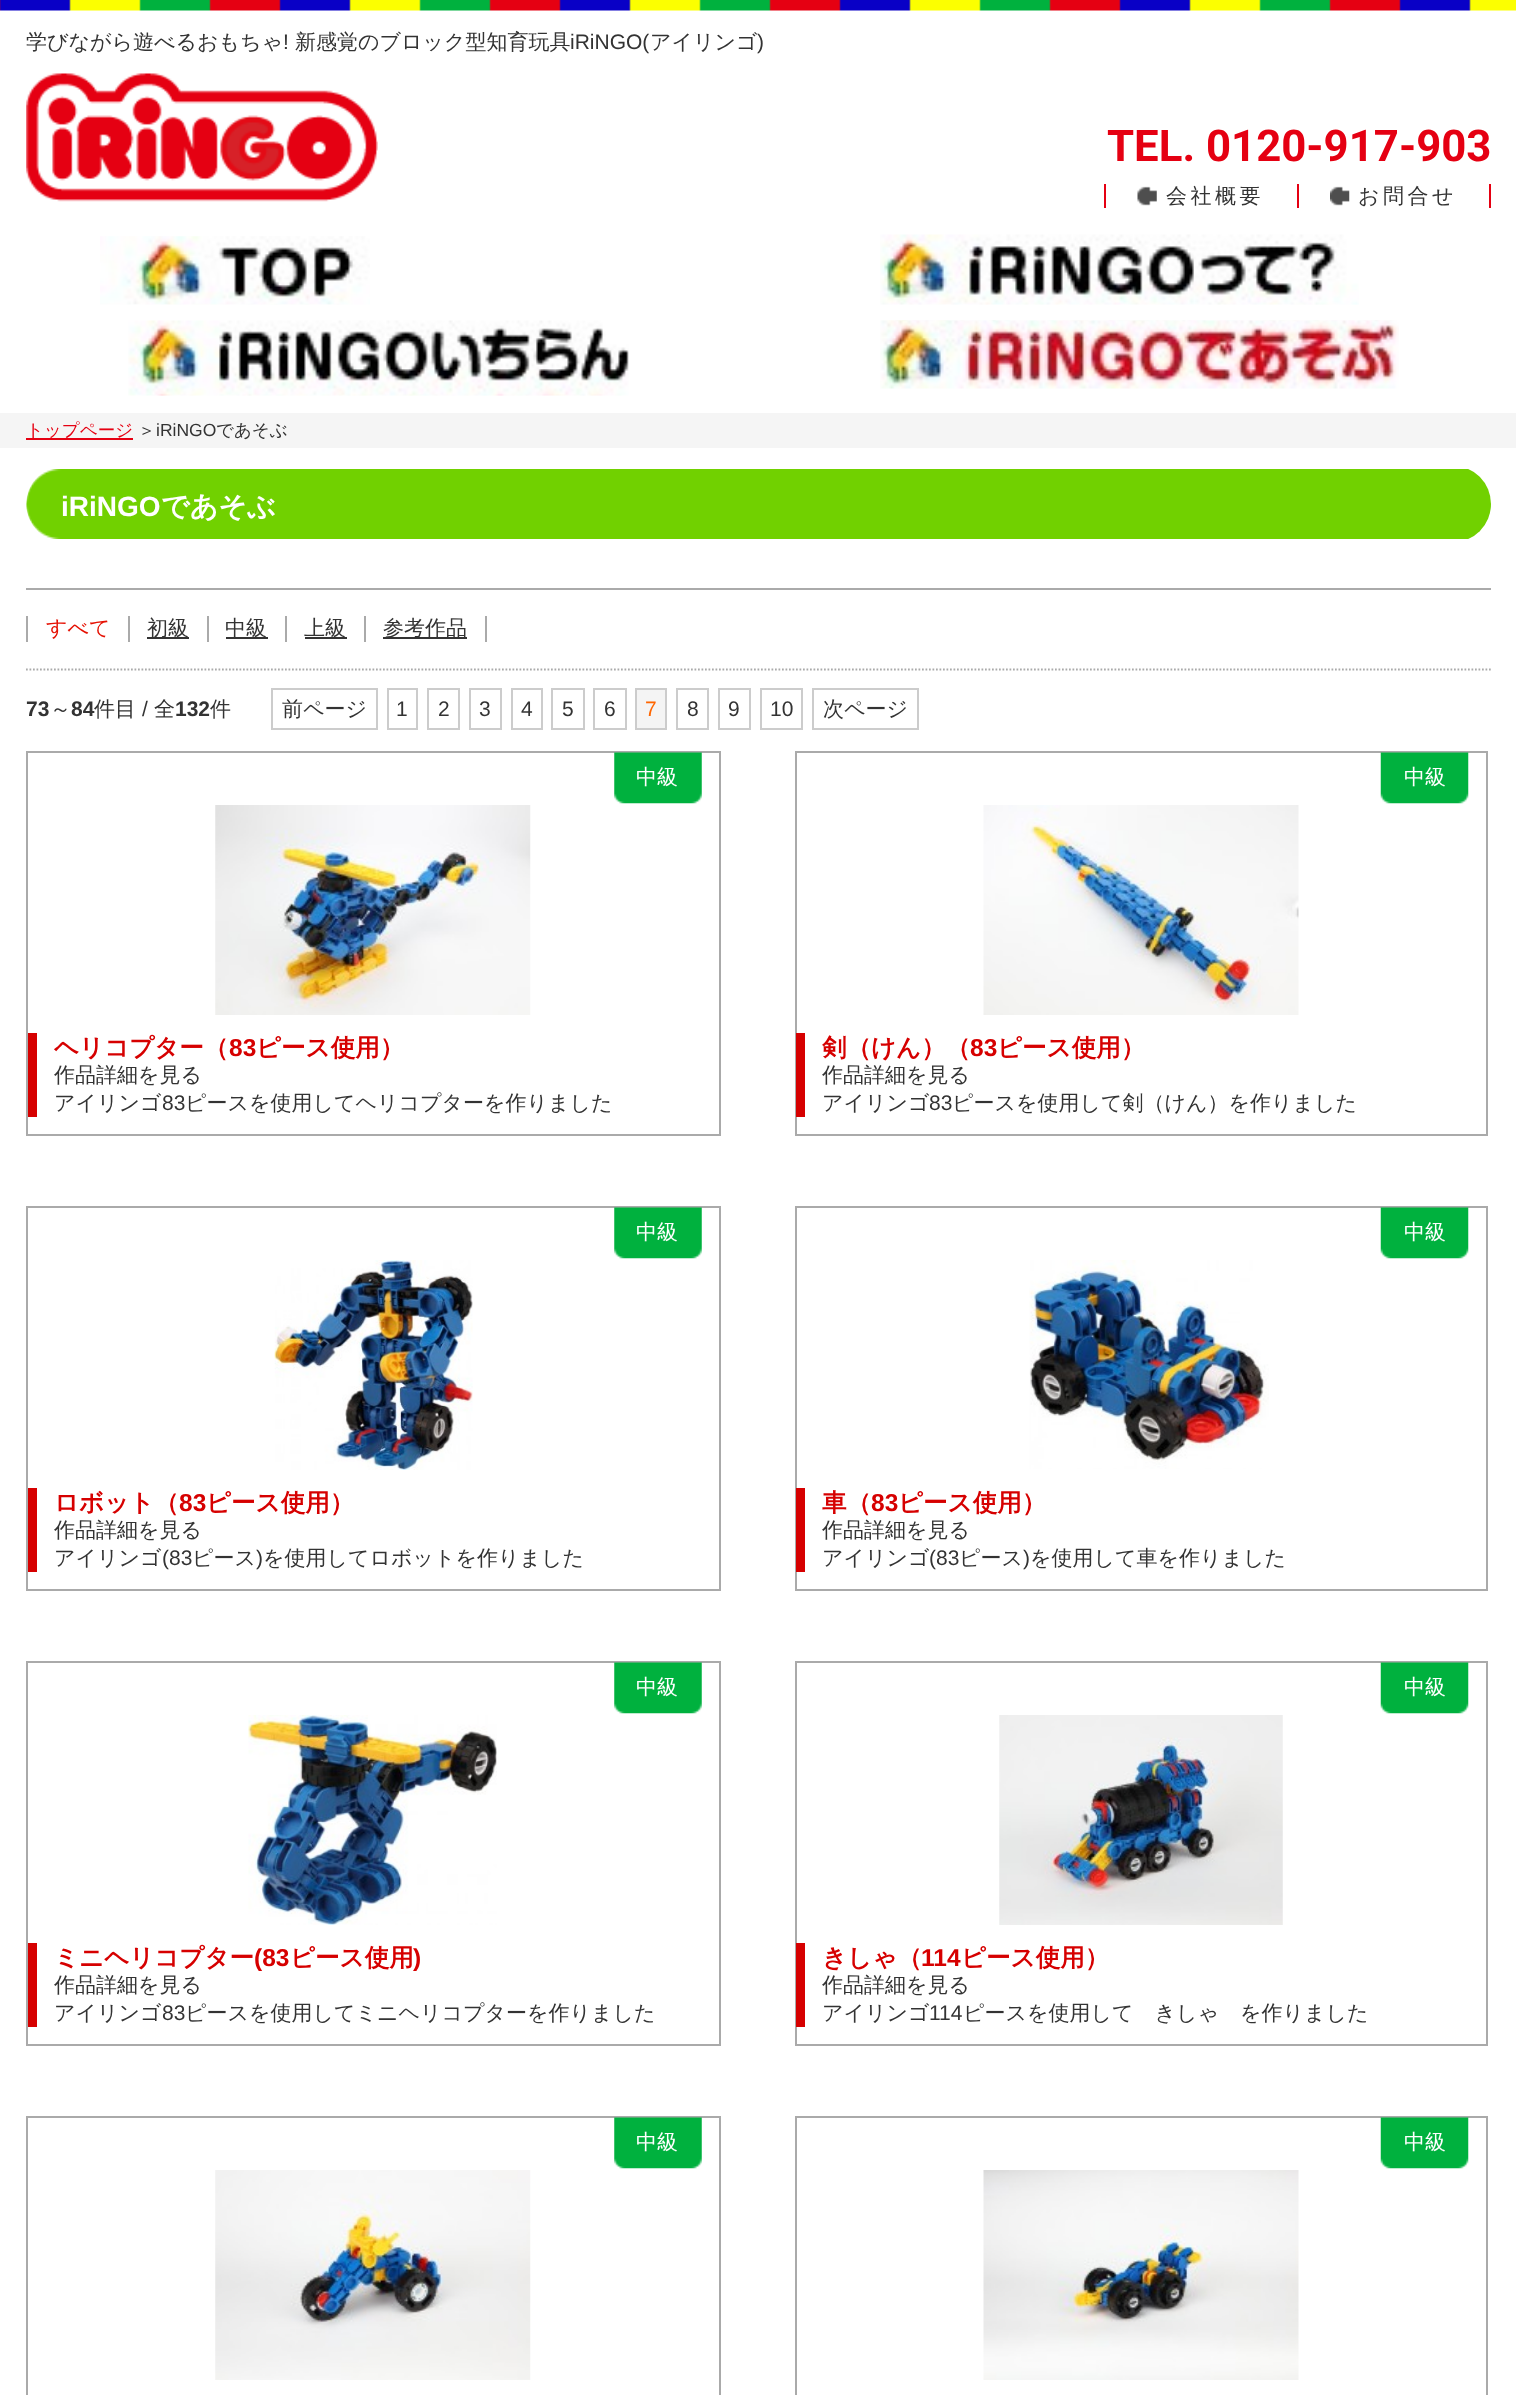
<?xml version="1.0" encoding="UTF-8"?>
<svg xmlns="http://www.w3.org/2000/svg" width="1516" height="2395">
    <rect width="100%" height="100%" fill="#FFFFFF"/>
    <image x="0" y="0" width="1516" height="11" href="img_01.png"/>
    <text x="26" y="49" font-family="WenQuanYi Zen Hei" font-size="21" font-weight="500" fill="#333333">学びながら遊べるおもちゃ</text>
    <text x="283" y="49" font-family="Liberation Sans" font-size="21" fill="#333333">!</text>
    <text x="295" y="49" font-family="WenQuanYi Zen Hei" font-size="21" font-weight="500" fill="#333333">新感覚のブロック型知育玩具</text>
    <text x="570" y="49" font-family="Liberation Sans" font-size="21" fill="#333333">iRiNGO(</text>
    <text x="650" y="49" font-family="WenQuanYi Zen Hei" font-size="21" font-weight="500" fill="#333333">アイリンゴ</text>
    <text x="757" y="49" font-family="Liberation Sans" font-size="21" fill="#333333">)</text>
    <image x="26" y="73" width="352" height="129" href="img_02.png"/>
    <image x="100" y="236" width="270" height="69" href="img_03.png"/>
    <image x="880" y="234" width="479" height="71" href="img_04.png"/>
    <image x="128" y="320" width="501" height="76" href="img_05.png"/>
    <image x="880" y="320" width="519" height="69" href="img_06.png"/>
    <text x="1107" y="161" font-family="Roboto" font-size="43.75" font-weight="700" fill="#E50012">TEL. 0120-917-903</text>
    <rect x="1104" y="184" width="2" height="24" fill="#E50012"/>
    <rect x="1297" y="184" width="2" height="24" fill="#E50012"/>
    <image x="1137" y="186" width="20" height="20" href="img_07.png"/>
    <text x="1166" y="203" font-family="WenQuanYi Zen Hei" font-size="21" font-weight="500" letter-spacing="3.5" fill="#333333">会社概要</text>
    <rect x="1489" y="184" width="2" height="24" fill="#E50012"/>
    <image x="1330" y="186" width="20" height="20" href="img_08.png"/>
    <text x="1358" y="203" font-family="WenQuanYi Zen Hei" font-size="21" font-weight="500" letter-spacing="3.5" fill="#333333">お問合せ</text>
    <rect x="0" y="413" width="1516" height="35" fill="#F5F5F5"/>
    <rect x="26" y="438" width="107" height="2" fill="#E50012"/>
    <text x="26" y="436" font-family="WenQuanYi Zen Hei" font-size="17.5" font-weight="500" fill="#E50012">トップページ</text>
    <text x="138" y="436" font-family="WenQuanYi Zen Hei" font-size="17.5" font-weight="500" fill="#333333">＞</text>
    <text x="156" y="436" font-family="Liberation Sans" font-size="17.5" fill="#333333">iRiNGO</text>
    <text x="216" y="436" font-family="WenQuanYi Zen Hei" font-size="17.5" font-weight="500" fill="#333333">であそぶ</text>
    <image x="26" y="469" width="1465" height="70" href="img_09.png"/>
    <text x="61" y="516" font-family="Liberation Sans" font-size="28" font-weight="700" fill="#FFFFFF">iRiNGO</text>
    <text x="161" y="516" font-family="WenQuanYi Zen Hei" font-size="28" font-weight="700" fill="#FFFFFF">であそぶ</text>
    <rect x="26" y="588" width="1465" height="2" fill="#AAAAAA"/>
    <path d="M 26 669.5 H 1491" fill="none" stroke="#AAAAAA" stroke-width="1.8" stroke-dasharray="1.75 1.75"/>
    <rect x="26" y="616" width="2" height="26" fill="#AAAAAA"/>
    <rect x="128" y="616" width="2" height="26" fill="#AAAAAA"/>
    <text x="46" y="635" font-family="WenQuanYi Zen Hei" font-size="21" font-weight="500" fill="#E51002">すべて</text>
    <rect x="207" y="616" width="2" height="26" fill="#AAAAAA"/>
    <rect x="147" y="637" width="42" height="2" fill="#333333"/>
    <text x="147" y="635" font-family="WenQuanYi Zen Hei" font-size="21" font-weight="500" fill="#333333">初級</text>
    <rect x="285" y="616" width="2" height="26" fill="#AAAAAA"/>
    <rect x="226" y="637" width="42" height="2" fill="#333333"/>
    <text x="225" y="635" font-family="WenQuanYi Zen Hei" font-size="21" font-weight="500" fill="#333333">中級</text>
    <rect x="364" y="616" width="2" height="26" fill="#AAAAAA"/>
    <rect x="305" y="637" width="42" height="2" fill="#333333"/>
    <text x="304" y="635" font-family="WenQuanYi Zen Hei" font-size="21" font-weight="500" fill="#333333">上級</text>
    <rect x="485" y="616" width="2" height="26" fill="#AAAAAA"/>
    <rect x="383" y="637" width="84" height="2" fill="#333333"/>
    <text x="383" y="635" font-family="WenQuanYi Zen Hei" font-size="21" font-weight="500" fill="#333333">参考作品</text>
    <text x="26" y="716" font-family="Liberation Sans" font-size="21" font-weight="700" fill="#333333">73</text>
    <text x="50" y="716" font-family="WenQuanYi Zen Hei" font-size="21" font-weight="500" fill="#333333">～</text>
    <text x="71" y="716" font-family="Liberation Sans" font-size="21" font-weight="700" fill="#333333">84</text>
    <text x="94" y="716" font-family="WenQuanYi Zen Hei" font-size="21" font-weight="500" fill="#333333">件目</text>
    <text x="142" y="716" font-family="Liberation Sans" font-size="21" fill="#333333">/</text>
    <text x="154" y="716" font-family="WenQuanYi Zen Hei" font-size="21" font-weight="500" fill="#333333">全</text>
    <text x="175" y="716" font-family="Liberation Sans" font-size="21" font-weight="700" fill="#333333">132</text>
    <text x="210" y="716" font-family="WenQuanYi Zen Hei" font-size="21" font-weight="500" fill="#333333">件</text>
    <rect x="272" y="689" width="105" height="40" fill="none" stroke="#CCCCCC" stroke-width="2"/>
    <text x="282" y="716" font-family="WenQuanYi Zen Hei" font-size="21" font-weight="500" fill="#333333">前ページ</text>
    <rect x="388" y="689" width="29" height="40" fill="none" stroke="#CCCCCC" stroke-width="2"/>
    <text x="396" y="716" font-family="Liberation Sans" font-size="21" fill="#333333">1</text>
    <rect x="428" y="689" width="31" height="40" fill="none" stroke="#CCCCCC" stroke-width="2"/>
    <text x="438" y="716" font-family="Liberation Sans" font-size="21" fill="#333333">2</text>
    <rect x="470" y="689" width="31" height="40" fill="none" stroke="#CCCCCC" stroke-width="2"/>
    <text x="479" y="716" font-family="Liberation Sans" font-size="21" fill="#333333">3</text>
    <rect x="512" y="689" width="30" height="40" fill="none" stroke="#CCCCCC" stroke-width="2"/>
    <text x="521" y="716" font-family="Liberation Sans" font-size="21" fill="#333333">4</text>
    <rect x="552" y="689" width="32" height="40" fill="none" stroke="#CCCCCC" stroke-width="2"/>
    <text x="562" y="716" font-family="Liberation Sans" font-size="21" fill="#333333">5</text>
    <rect x="594" y="689" width="32" height="40" fill="none" stroke="#CCCCCC" stroke-width="2"/>
    <text x="604" y="716" font-family="Liberation Sans" font-size="21" fill="#333333">6</text>
    <rect x="636" y="689" width="30" height="40" fill="#F4F4F4" stroke="#CCCCCC" stroke-width="2"/>
    <text x="645" y="716" font-family="Liberation Sans" font-size="21" fill="#FF6600">7</text>
    <rect x="677" y="689" width="31" height="40" fill="none" stroke="#CCCCCC" stroke-width="2"/>
    <text x="687" y="716" font-family="Liberation Sans" font-size="21" fill="#333333">8</text>
    <rect x="719" y="689" width="31" height="40" fill="none" stroke="#CCCCCC" stroke-width="2"/>
    <text x="728" y="716" font-family="Liberation Sans" font-size="21" fill="#333333">9</text>
    <rect x="761" y="689" width="41" height="40" fill="none" stroke="#CCCCCC" stroke-width="2"/>
    <text x="770" y="716" font-family="Liberation Sans" font-size="21" fill="#333333">10</text>
    <rect x="813" y="689" width="105" height="40" fill="none" stroke="#CCCCCC" stroke-width="2"/>
    <text x="823" y="716" font-family="WenQuanYi Zen Hei" font-size="21" font-weight="500" fill="#333333">次ページ</text>
    <rect x="27" y="752" width="693" height="383" fill="none" stroke="#AAAAAA" stroke-width="2"/>
    <image x="614" y="752" width="88" height="52" href="img_10.png"/>
    <text x="636" y="784" font-family="WenQuanYi Zen Hei" font-size="21" font-weight="500" fill="#FFFFFF">中級</text>
    <image x="215" y="805" width="316" height="210" href="img_11.png"/>
    <rect x="28" y="1033" width="9" height="84" fill="#D60000"/>
    <text x="54" y="1056" font-family="WenQuanYi Zen Hei" font-size="24.5" font-weight="700" fill="#D60000">ヘリコプター（</text>
    <text x="229" y="1056" font-family="Liberation Sans" font-size="24.5" font-weight="700" fill="#D60000">83</text>
    <text x="256" y="1056" font-family="WenQuanYi Zen Hei" font-size="24.5" font-weight="700" fill="#D60000">ピース使用）</text>
    <text font-family="WenQuanYi Zen Hei" font-size="21" font-weight="500" fill="#333333">
        <tspan x="54" y="1082">作品詳細を見る</tspan>
        <tspan x="54" y="1110">アイリンゴ</tspan>
    </text>
    <text x="162" y="1110" font-family="Liberation Sans" font-size="21" fill="#333333">83</text>
    <text x="185" y="1110" font-family="WenQuanYi Zen Hei" font-size="21" font-weight="500" fill="#333333">ピースを使用してヘリコプターを作りました</text>
    <rect x="796" y="752" width="691" height="383" fill="none" stroke="#AAAAAA" stroke-width="2"/>
    <image x="1380" y="752" width="89" height="52" href="img_12.png"/>
    <text x="1404" y="784" font-family="WenQuanYi Zen Hei" font-size="21" font-weight="500" fill="#FFFFFF">中級</text>
    <image x="983" y="805" width="316" height="210" href="img_13.png"/>
    <rect x="796" y="1033" width="9" height="84" fill="#D60000"/>
    <text x="822" y="1056" font-family="WenQuanYi Zen Hei" font-size="24.5" font-weight="700" fill="#D60000">剣（けん）（</text>
    <text x="970" y="1056" font-family="Liberation Sans" font-size="24.5" font-weight="700" fill="#D60000">83</text>
    <text x="997" y="1056" font-family="WenQuanYi Zen Hei" font-size="24.5" font-weight="700" fill="#D60000">ピース使用）</text>
    <text font-family="WenQuanYi Zen Hei" font-size="21" font-weight="500" fill="#333333">
        <tspan x="822" y="1082">作品詳細を見る</tspan>
        <tspan x="822" y="1110">アイリンゴ</tspan>
    </text>
    <text x="929" y="1110" font-family="Liberation Sans" font-size="21" fill="#333333">83</text>
    <text x="952" y="1110" font-family="WenQuanYi Zen Hei" font-size="21" font-weight="500" fill="#333333">ピースを使用して剣（けん）を作りました</text>
    <rect x="27" y="1207" width="693" height="383" fill="none" stroke="#AAAAAA" stroke-width="2"/>
    <image x="614" y="1207" width="88" height="52" href="img_10.png"/>
    <text x="636" y="1239" font-family="WenQuanYi Zen Hei" font-size="21" font-weight="500" fill="#FFFFFF">中級</text>
    <image x="274" y="1260" width="199" height="210" href="img_14.png"/>
    <rect x="28" y="1488" width="9" height="84" fill="#D60000"/>
    <text x="54" y="1511" font-family="WenQuanYi Zen Hei" font-size="24.5" font-weight="700" fill="#D60000">ロボット（</text>
    <text x="179" y="1511" font-family="Liberation Sans" font-size="24.5" font-weight="700" fill="#D60000">83</text>
    <text x="206" y="1511" font-family="WenQuanYi Zen Hei" font-size="24.5" font-weight="700" fill="#D60000">ピース使用）</text>
    <text font-family="WenQuanYi Zen Hei" font-size="21" font-weight="500" fill="#333333">
        <tspan x="54" y="1537">作品詳細を見る</tspan>
        <tspan x="54" y="1565">アイリンゴ</tspan>
    </text>
    <text x="162" y="1565" font-family="Liberation Sans" font-size="21" fill="#333333">(83</text>
    <text x="192" y="1565" font-family="WenQuanYi Zen Hei" font-size="21" font-weight="500" fill="#333333">ピース</text>
    <text x="256" y="1565" font-family="Liberation Sans" font-size="21" fill="#333333">)</text>
    <text x="263" y="1565" font-family="WenQuanYi Zen Hei" font-size="21" font-weight="500" fill="#333333">を使用してロボットを作りました</text>
    <rect x="796" y="1207" width="691" height="383" fill="none" stroke="#AAAAAA" stroke-width="2"/>
    <image x="1380" y="1207" width="89" height="52" href="img_12.png"/>
    <text x="1404" y="1239" font-family="WenQuanYi Zen Hei" font-size="21" font-weight="500" fill="#FFFFFF">中級</text>
    <image x="1029" y="1260" width="240" height="209" href="img_15.png"/>
    <rect x="796" y="1488" width="9" height="84" fill="#D60000"/>
    <text x="822" y="1511" font-family="WenQuanYi Zen Hei" font-size="24.5" font-weight="700" fill="#D60000">車（</text>
    <text x="871" y="1511" font-family="Liberation Sans" font-size="24.5" font-weight="700" fill="#D60000">83</text>
    <text x="898" y="1511" font-family="WenQuanYi Zen Hei" font-size="24.5" font-weight="700" fill="#D60000">ピース使用）</text>
    <text font-family="WenQuanYi Zen Hei" font-size="21" font-weight="500" fill="#333333">
        <tspan x="822" y="1537">作品詳細を見る</tspan>
        <tspan x="822" y="1565">アイリンゴ</tspan>
    </text>
    <text x="929" y="1565" font-family="Liberation Sans" font-size="21" fill="#333333">(83</text>
    <text x="959" y="1565" font-family="WenQuanYi Zen Hei" font-size="21" font-weight="500" fill="#333333">ピース</text>
    <text x="1023" y="1565" font-family="Liberation Sans" font-size="21" fill="#333333">)</text>
    <text x="1030" y="1565" font-family="WenQuanYi Zen Hei" font-size="21" font-weight="500" fill="#333333">を使用して車を作りました</text>
    <rect x="27" y="1662" width="693" height="383" fill="none" stroke="#AAAAAA" stroke-width="2"/>
    <image x="614" y="1662" width="88" height="52" href="img_10.png"/>
    <text x="636" y="1694" font-family="WenQuanYi Zen Hei" font-size="21" font-weight="500" fill="#FFFFFF">中級</text>
    <image x="248" y="1715" width="249" height="210" href="img_16.png"/>
    <rect x="28" y="1943" width="9" height="84" fill="#D60000"/>
    <text x="54" y="1966" font-family="WenQuanYi Zen Hei" font-size="24.5" font-weight="700" fill="#D60000">ミニヘリコプター</text>
    <text x="254" y="1966" font-family="Liberation Sans" font-size="24.5" font-weight="700" fill="#D60000">(83</text>
    <text x="290" y="1966" font-family="WenQuanYi Zen Hei" font-size="24.5" font-weight="700" fill="#D60000">ピース使用</text>
    <text x="413" y="1966" font-family="Liberation Sans" font-size="24.5" font-weight="700" fill="#D60000">)</text>
    <text font-family="WenQuanYi Zen Hei" font-size="21" font-weight="500" fill="#333333">
        <tspan x="54" y="1992">作品詳細を見る</tspan>
        <tspan x="54" y="2020">アイリンゴ</tspan>
    </text>
    <text x="162" y="2020" font-family="Liberation Sans" font-size="21" fill="#333333">83</text>
    <text x="185" y="2020" font-family="WenQuanYi Zen Hei" font-size="21" font-weight="500" fill="#333333">ピースを使用してミニヘリコプターを作りました</text>
    <rect x="796" y="1662" width="691" height="383" fill="none" stroke="#AAAAAA" stroke-width="2"/>
    <image x="1380" y="1662" width="89" height="52" href="img_12.png"/>
    <text x="1404" y="1694" font-family="WenQuanYi Zen Hei" font-size="21" font-weight="500" fill="#FFFFFF">中級</text>
    <image x="999" y="1715" width="284" height="210" href="img_17.png"/>
    <rect x="796" y="1943" width="9" height="84" fill="#D60000"/>
    <text x="822" y="1966" font-family="WenQuanYi Zen Hei" font-size="24.5" font-weight="700" fill="#D60000">きしゃ（</text>
    <text x="921" y="1966" font-family="Liberation Sans" font-size="24.5" font-weight="700" fill="#D60000">114</text>
    <text x="961" y="1966" font-family="WenQuanYi Zen Hei" font-size="24.5" font-weight="700" fill="#D60000">ピース使用）</text>
    <text font-family="WenQuanYi Zen Hei" font-size="21" font-weight="500" fill="#333333">
        <tspan x="822" y="1992">作品詳細を見る</tspan>
        <tspan x="822" y="2020">アイリンゴ</tspan>
    </text>
    <text x="929" y="2020" font-family="Liberation Sans" font-size="21" fill="#333333">114</text>
    <text x="963" y="2020" font-family="WenQuanYi Zen Hei" font-size="21" font-weight="500" fill="#333333">ピースを使用して　きしゃ　を作りました</text>
    <rect x="27" y="2117" width="693" height="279" fill="none" stroke="#AAAAAA" stroke-width="2"/>
    <image x="614" y="2117" width="88" height="52" href="img_10.png"/>
    <text x="636" y="2149" font-family="WenQuanYi Zen Hei" font-size="21" font-weight="500" fill="#FFFFFF">中級</text>
    <image x="215" y="2170" width="316" height="210" href="img_18.png"/>
    <rect x="796" y="2117" width="691" height="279" fill="none" stroke="#AAAAAA" stroke-width="2"/>
    <image x="1380" y="2117" width="89" height="52" href="img_12.png"/>
    <text x="1404" y="2149" font-family="WenQuanYi Zen Hei" font-size="21" font-weight="500" fill="#FFFFFF">中級</text>
    <image x="983" y="2170" width="316" height="210" href="img_19.png"/>
</svg>
